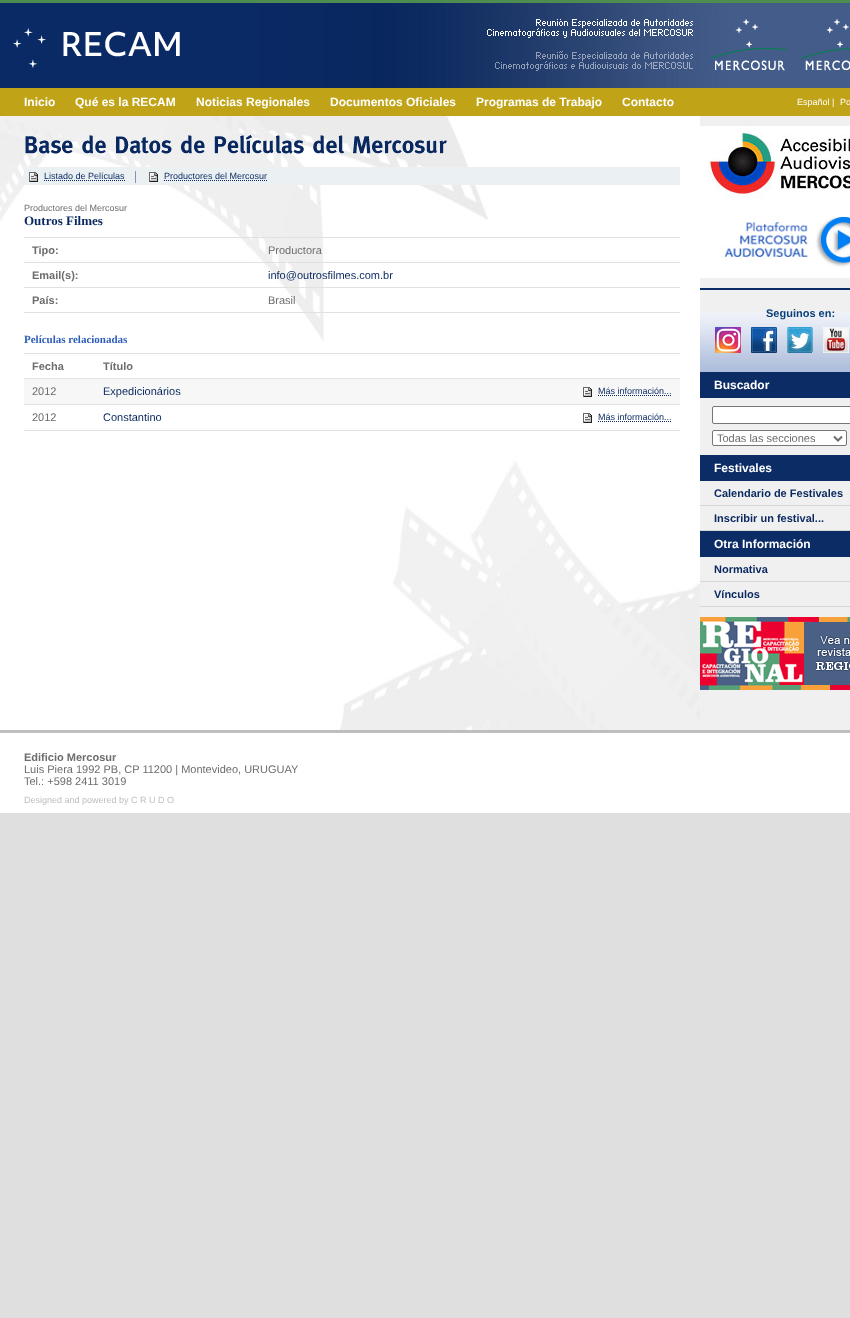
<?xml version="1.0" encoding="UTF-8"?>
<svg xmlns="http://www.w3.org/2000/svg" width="850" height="1318">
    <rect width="100%" height="100%" fill="#DFDFDF"/>
    <image x="0" y="3" width="850" height="85" href="img_01.png"/>
    <rect x="0" y="0" width="850" height="3" fill="#4D8D50"/>
    <image x="13" y="28" width="167" height="40" href="img_02.png"/>
    <image x="487" y="19" width="363" height="52" href="img_03.png"/>
    <rect x="0" y="88" width="850" height="28" fill="#C0A317"/>
    <text x="24" y="106" font-family="Liberation Sans" font-size="12" font-weight="700" fill="#FFFFFF">Inicio</text>
    <text x="75" y="106" font-family="Liberation Sans" font-size="12" font-weight="700" fill="#FFFFFF">Qué es la RECAM</text>
    <text x="196" y="106" font-family="Liberation Sans" font-size="12" font-weight="700" fill="#FFFFFF">Noticias Regionales</text>
    <text x="330" y="106" font-family="Liberation Sans" font-size="12" font-weight="700" fill="#FFFFFF">Documentos Oficiales</text>
    <text x="476" y="106" font-family="Liberation Sans" font-size="12" font-weight="700" fill="#FFFFFF">Programas de Trabajo</text>
    <text x="622" y="106" font-family="Liberation Sans" font-size="12" font-weight="700" fill="#FFFFFF">Contacto</text>
    <text x="797" y="105" font-family="Liberation Sans" font-size="9" fill="#FFFFFF">Español |</text>
    <text x="840" y="105" font-family="Liberation Sans" font-size="9" fill="#FFFFFF">Po</text>
    <image x="0" y="116" width="850" height="614" href="img_04.png"/>
    <image x="25" y="135" width="422" height="19" href="img_05.png"/>
    <rect x="24" y="167" width="656" height="18" fill="#EBF0F3"/>
    <image x="29" y="172" width="9" height="10" href="img_06.png"/>
    <text x="44" y="179" font-family="Liberation Sans" font-size="9" fill="#09285F">Listado de Películas</text>
    <rect x="135" y="171" width="1" height="12" fill="#8493AF"/>
    <image x="149" y="172" width="9" height="10" href="img_06.png"/>
    <text x="164" y="179" font-family="Liberation Sans" font-size="9" fill="#09285F">Productores del Mercosur</text>
    <image x="44" y="180" width="81" height="1" href="img_07.png"/>
    <image x="164" y="180" width="103" height="1" href="img_08.png"/>
    <text x="24" y="211" font-family="Liberation Sans" font-size="9" fill="#6D6D6D">Productores del Mercosur</text>
    <text x="24" y="225" font-family="Liberation Serif" font-size="13" font-weight="700" fill="#09285F">Outros Filmes</text>
    <rect x="24" y="237" width="656" height="1" fill="#E1E1E1"/>
    <rect x="24" y="262" width="656" height="1" fill="#E1E1E1"/>
    <text x="32" y="254" font-family="Liberation Sans" font-size="11" font-weight="700" fill="#6D6D6D">Tipo:</text>
    <text x="268" y="254" font-family="Liberation Sans" font-size="11" fill="#6D6D6D">Productora</text>
    <rect x="24" y="287" width="656" height="1" fill="#E1E1E1"/>
    <text x="32" y="279" font-family="Liberation Sans" font-size="11" font-weight="700" fill="#6D6D6D">Email(s):</text>
    <text x="268" y="279" font-family="Liberation Sans" font-size="11" fill="#09285F">info@outrosfilmes.com.br</text>
    <rect x="24" y="312" width="656" height="1" fill="#E1E1E1"/>
    <text x="32" y="304" font-family="Liberation Sans" font-size="11" font-weight="700" fill="#6D6D6D">País:</text>
    <text x="268" y="304" font-family="Liberation Sans" font-size="11" fill="#6D6D6D">Brasil</text>
    <text x="24" y="343" font-family="Liberation Serif" font-size="11" font-weight="700" fill="#2C5EB7">Películas relacionadas</text>
    <rect x="24" y="353" width="656" height="1" fill="#E1E1E1"/>
    <rect x="24" y="378" width="656" height="1" fill="#E1E1E1"/>
    <text x="32" y="370" font-family="Liberation Sans" font-size="11" font-weight="700" fill="#6D6D6D">Fecha</text>
    <text x="103" y="370" font-family="Liberation Sans" font-size="11" font-weight="700" fill="#6D6D6D">Título</text>
    <rect x="24" y="379" width="656" height="25" fill="#F7F7F7"/>
    <rect x="24" y="404" width="656" height="1" fill="#E1E1E1"/>
    <text x="32" y="395" font-family="Liberation Sans" font-size="11" fill="#6D6D6D">2012</text>
    <text x="103" y="395" font-family="Liberation Sans" font-size="11" fill="#09285F">Expedicionários</text>
    <image x="583" y="387" width="9" height="10" href="img_09.png"/>
    <text x="598" y="394" font-family="Liberation Sans" font-size="9" fill="#09285F">Más información...</text>
    <image x="598" y="395" width="73" height="1" href="img_10.png"/>
    <rect x="24" y="430" width="656" height="1" fill="#E1E1E1"/>
    <text x="32" y="421" font-family="Liberation Sans" font-size="11" fill="#6D6D6D">2012</text>
    <text x="103" y="421" font-family="Liberation Sans" font-size="11" fill="#09285F">Constantino</text>
    <image x="583" y="413" width="9" height="10" href="img_11.png"/>
    <text x="598" y="420" font-family="Liberation Sans" font-size="9" fill="#09285F">Más información...</text>
    <image x="598" y="421" width="73" height="1" href="img_12.png"/>
    <image x="700" y="126" width="150" height="76" href="img_13.png"/>
    <image x="700" y="202" width="150" height="76" href="img_14.png"/>
    <image x="700" y="312" width="150" height="60" href="img_15.png"/>
    <rect x="700" y="288" width="150" height="2" fill="#0C2C65"/>
    <text x="766" y="317" font-family="Liberation Sans" font-size="11" font-weight="700" fill="#0B3F79">Seguinos en:</text>
    <image x="715" y="327" width="26" height="26" href="img_16.png"/>
    <image x="751" y="327" width="26" height="26" href="img_17.png"/>
    <image x="787" y="327" width="26" height="26" href="img_18.png"/>
    <image x="823" y="327" width="26" height="26" href="img_19.png"/>
    <rect x="700" y="372" width="150" height="26" fill="#0C2C65"/>
    <text x="714" y="389" font-family="Liberation Sans" font-size="12" font-weight="700" fill="#FFFFFF">Buscador</text>
    <rect x="712.5" y="406.5" width="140" height="17" rx="1.5" fill="#FFFFFF" stroke="#767676"/>
    <rect x="712.5" y="430.5" width="134" height="15" rx="1.5" fill="#FFFFFF" stroke="#767676"/>
    <path d="M 834 436.5 L 838 440.5 L 842 436.5" fill="none" stroke="#6E6E6E" stroke-width="2"/>
    <text x="717" y="442" font-family="Liberation Sans" font-size="11" fill="#6D6D6D">Todas las secciones</text>
    <rect x="700" y="455" width="150" height="26" fill="#0C2C65"/>
    <text x="714" y="472" font-family="Liberation Sans" font-size="12" font-weight="700" fill="#FFFFFF">Festivales</text>
    <rect x="700" y="505" width="150" height="1" fill="#D6D6D6"/>
    <text x="714" y="497" font-family="Liberation Sans" font-size="11" font-weight="700" fill="#09285F">Calendario de Festivales</text>
    <rect x="700" y="530" width="150" height="1" fill="#D6D6D6"/>
    <text x="714" y="522" font-family="Liberation Sans" font-size="11" font-weight="700" fill="#09285F">Inscribir un festival...</text>
    <rect x="700" y="531" width="150" height="26" fill="#0C2C65"/>
    <text x="714" y="548" font-family="Liberation Sans" font-size="12" font-weight="700" fill="#FFFFFF">Otra Información</text>
    <rect x="700" y="581" width="150" height="1" fill="#D6D6D6"/>
    <text x="714" y="573" font-family="Liberation Sans" font-size="11" font-weight="700" fill="#09285F">Normativa</text>
    <rect x="700" y="606" width="150" height="1" fill="#D6D6D6"/>
    <text x="714" y="598" font-family="Liberation Sans" font-size="11" font-weight="700" fill="#09285F">Vínculos</text>
    <image x="700" y="617" width="150" height="73" href="img_20.png"/>
    <rect x="0" y="733" width="850" height="80" fill="#FFFFFF"/>
    <rect x="0" y="730" width="850" height="3" fill="#BEBEBE"/>
    <text x="24" y="761" font-family="Liberation Sans" font-size="11" font-weight="700" fill="#6D6D6D">Edificio Mercosur</text>
    <text font-family="Liberation Sans" font-size="11" fill="#6D6D6D">
        <tspan x="24" y="773">Luis Piera 1992 PB, CP 11200 | Montevideo, URUGUAY</tspan>
        <tspan x="24" y="785">Tel.: +598 2411 3019</tspan>
    </text>
    <text x="24" y="803" font-family="Liberation Sans" font-size="9" fill="#BEBEBE">Designed and powered by C R U D O</text>
</svg>
